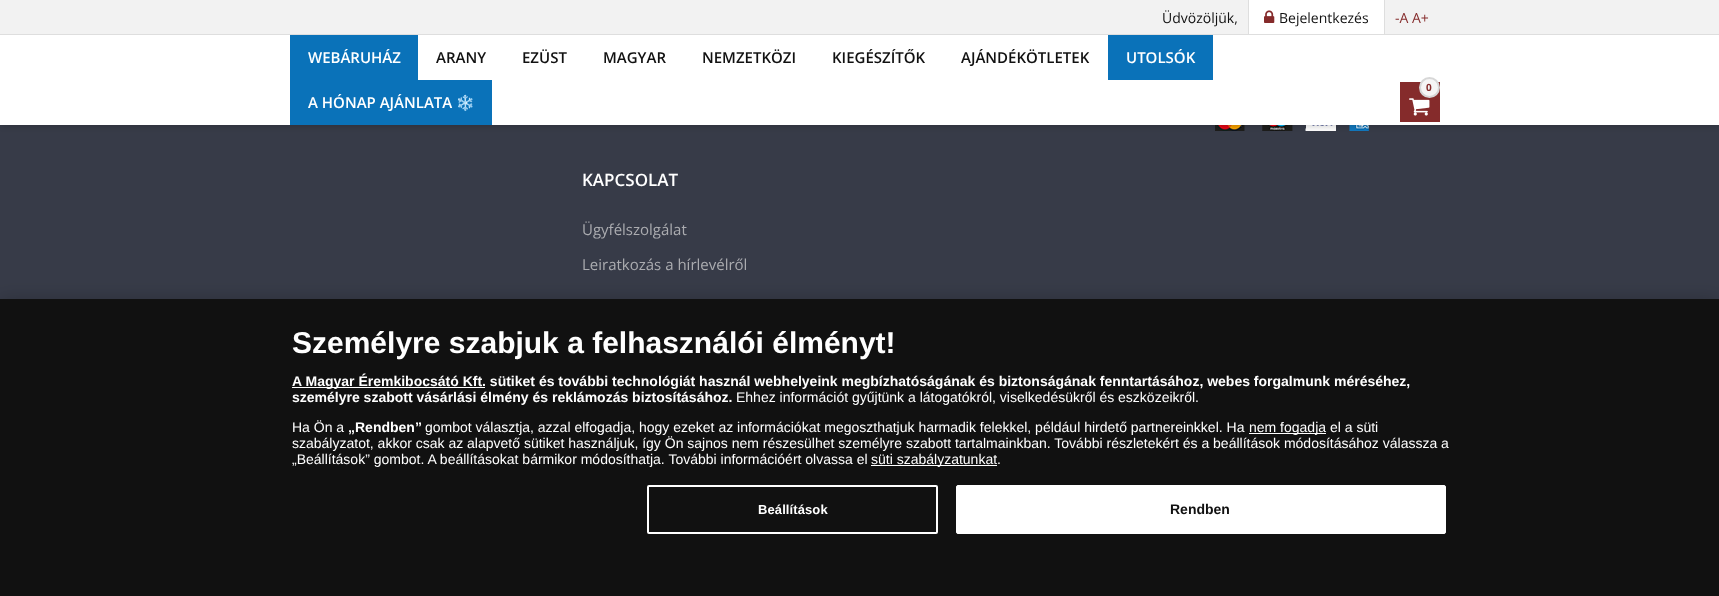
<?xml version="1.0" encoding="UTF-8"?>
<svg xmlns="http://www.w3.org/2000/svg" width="1719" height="596">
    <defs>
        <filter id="blur1" x="-50%" y="-200%" width="200%" height="500%"><feGaussianBlur stdDeviation="4"/></filter>
        <filter id="blur2" x="-50%" y="-200%" width="200%" height="500%"><feGaussianBlur stdDeviation="9"/></filter>
    </defs>
    <rect width="100%" height="100%" fill="#373B48"/>
    <image x="1215" y="125" width="154" height="6" href="img_03.png"/>
    <rect x="0" y="0" width="1719" height="125" fill="#000000" fill-opacity="0.26" filter="url(#blur1)"/>
    <rect x="0" y="35" width="1719" height="90" fill="#FFFFFF"/>
    <rect x="0" y="0" width="1719" height="34" fill="#F2F2F2"/>
    <rect x="0" y="34" width="1719" height="1" fill="#DEDEDE"/>
    <text x="1162" y="23" font-family="Open Sans" font-size="14" fill="#111111">Üdvözöljük,</text>
    <rect x="1249" y="0" width="135" height="34" fill="#FFFFFF"/>
    <rect x="1384" y="0" width="1" height="35" fill="#DEDEDE"/>
    <rect x="1248" y="0" width="1" height="35" fill="#DEDEDE"/>
    <image x="1264" y="10" width="11" height="13" href="img_01.png"/>
    <text x="1279" y="23" font-family="Open Sans" font-size="14" fill="#111111">Bejelentkezés</text>
    <text x="1395" y="23" font-family="Open Sans" font-size="14" fill="#852B2B">-A A+</text>
    <rect x="290" y="35" width="128" height="45" fill="#0A72B9"/>
    <text x="308" y="63" font-family="Open Sans" font-size="15" font-weight="600" fill="#FFFFFF">WEBÁRUHÁZ</text>
    <text x="436" y="63" font-family="Open Sans" font-size="15" font-weight="600" fill="#111111">ARANY</text>
    <text x="522" y="63" font-family="Open Sans" font-size="15" font-weight="600" fill="#111111">EZÜST</text>
    <text x="603" y="63" font-family="Open Sans" font-size="15" font-weight="600" fill="#111111">MAGYAR</text>
    <text x="702" y="63" font-family="Open Sans" font-size="15" font-weight="600" fill="#111111">NEMZETKÖZI</text>
    <text x="832" y="63" font-family="Open Sans" font-size="15" font-weight="600" fill="#111111">KIEGÉSZÍTŐK</text>
    <text x="961" y="63" font-family="Open Sans" font-size="15" font-weight="600" fill="#111111">AJÁNDÉKÖTLETEK</text>
    <rect x="1108" y="35" width="105" height="45" fill="#0A72B9"/>
    <text x="1126" y="63" font-family="Open Sans" font-size="15" font-weight="600" fill="#FFFFFF">UTOLSÓK</text>
    <rect x="1400" y="82" width="40" height="40" fill="#852B2B"/>
    <circle cx="1429.5" cy="87.5" r="9.5" fill="#F6F5F5" stroke="#D7D7D7" stroke-width="2"/>
    <text x="1426" y="91" font-family="Open Sans" font-size="10" font-weight="700" fill="#852B2B">0</text>
    <image x="1409" y="98" width="21" height="18" href="img_02.png"/>
    <rect x="290" y="80" width="202" height="45" fill="#0A72B9"/>
    <text x="308" y="108" font-family="Open Sans" font-size="15" font-weight="600" fill="#FFFFFF">A HÓNAP AJÁNLATA</text>
    <text x="456" y="108" font-family="Noto Color Emoji" font-size="15" font-weight="700" fill="#FFFFFF">❄️</text>
    <text x="582" y="186" font-family="Open Sans" font-size="17" font-weight="600" fill="#FFFFFF">KAPCSOLAT</text>
    <text x="582" y="235" font-family="Open Sans" font-size="15" fill="#ABACB0">Ügyfélszolgálat</text>
    <text x="582" y="270" font-family="Open Sans" font-size="15" fill="#ABACB0">Leiratkozás a hírlevélről</text>
    <rect x="0" y="299" width="1719" height="297" fill="#000000" fill-opacity="0.2" filter="url(#blur2)"/>
    <rect x="0" y="299" width="1719" height="297" fill="#111111"/>
    <text x="292" y="353" font-family="Liberation Sans" font-size="30" font-weight="700" fill="#FFFFFF">Személyre szabjuk a felhasználói élményt!</text>
    <rect x="292" y="387" width="193" height="1" fill="#FFFFFF"/>
    <text font-family="Liberation Sans" font-size="14" font-weight="700" fill="#FFFFFF">
        <tspan x="292" y="386">A Magyar Éremkibocsátó Kft. sütiket és további technológiát használ webhelyeink megbízhatóságának és biztonságának fenntartásához, webes forgalmunk méréséhez,</tspan>
        <tspan x="292" y="402">személyre szabott vásárlási élmény és reklámozás biztosításához.</tspan>
    </text>
    <text x="736" y="402" font-family="Liberation Sans" font-size="14" fill="#FFFFFF">Ehhez információt gyűjtünk a látogatókról, viselkedésükről és eszközeikről.</text>
    <text x="292" y="432" font-family="Liberation Sans" font-size="14" fill="#FFFFFF">Ha Ön a</text>
    <text x="348" y="432" font-family="Liberation Sans" font-size="14" font-weight="700" fill="#FFFFFF">„Rendben”</text>
    <text x="425" y="432" font-family="Liberation Sans" font-size="14" fill="#FFFFFF">gombot választja, azzal elfogadja, hogy ezeket az információkat megoszthatjuk harmadik felekkel, például hirdető partnereinkkel. Ha</text>
    <rect x="1249" y="433" width="77" height="1" fill="#FFFFFF"/>
    <text x="1249" y="432" font-family="Liberation Sans" font-size="14" fill="#FFFFFF">nem fogadja el a süti</text>
    <text font-family="Liberation Sans" font-size="14" fill="#FFFFFF">
        <tspan x="292" y="448">szabályzatot, akkor csak az alapvető sütiket használjuk, így Ön sajnos nem részesülhet személyre szabott tartalmainkban. További részletekért és a beállítások módosításához válassza a</tspan>
        <tspan x="292" y="464">„Beállítások” gombot. A beállításokat bármikor módosíthatja. További információért olvassa el</tspan>
    </text>
    <rect x="871" y="465" width="126" height="1" fill="#FFFFFF"/>
    <text x="871" y="464" font-family="Liberation Sans" font-size="14" fill="#FFFFFF">süti szabályzatunkat.</text>
    <rect x="648" y="486" width="289" height="47" rx="1" fill="none" stroke="#FFFFFF" stroke-width="2"/>
    <text x="758" y="514" font-family="Liberation Sans" font-size="13" font-weight="700" letter-spacing="0.1" fill="#FFFFFF">Beállítások</text>
    <rect x="956.5" y="485.5" width="489" height="48" rx="1.5" fill="#FFFFFF" stroke="#FFFFFF"/>
    <text x="1170" y="514" font-family="Liberation Sans" font-size="14" font-weight="700" fill="#111111">Rendben</text>
</svg>
